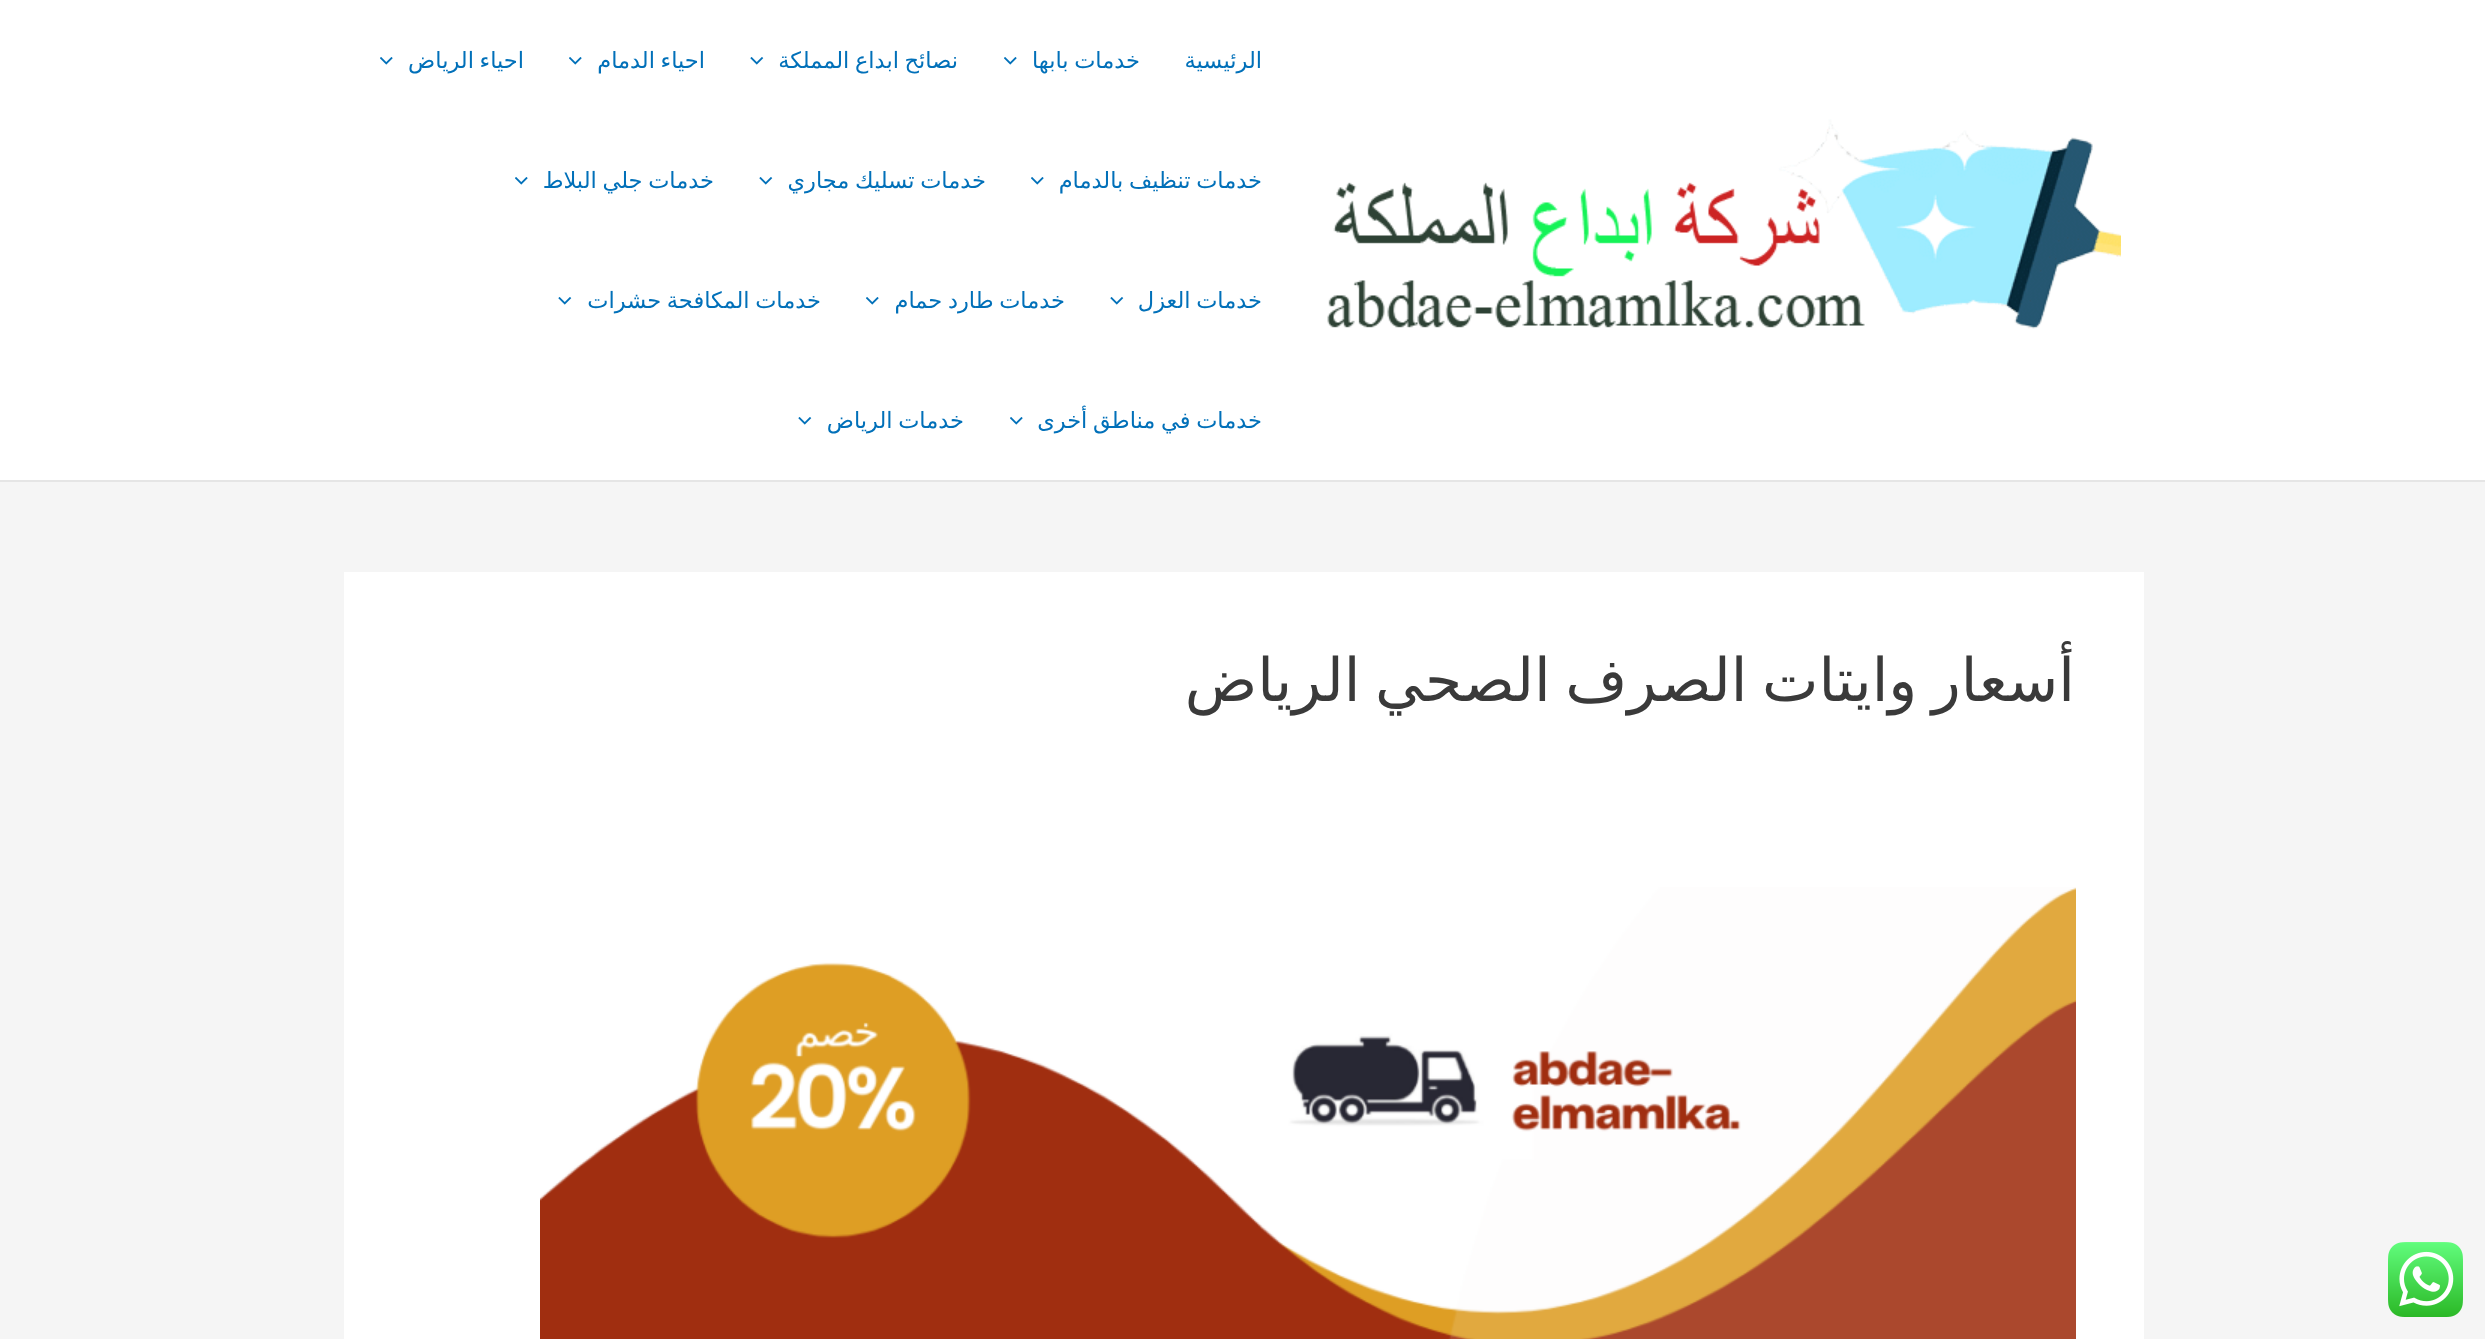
<?xml version="1.0" encoding="UTF-8"?>
<svg xmlns="http://www.w3.org/2000/svg" width="2485" height="1339">
    <rect width="100%" height="100%" fill="#F5F5F5"/>
    <rect x="0" y="0" width="2485" height="480" fill="#FFFFFF"/>
    <rect x="0" y="480" width="2485" height="2" fill="#E5E5E5"/>
    <image x="1327" y="119" width="794" height="210" href="img_01.png"/>
    <text x="1262" y="68" font-family="DejaVu Sans" font-size="22.5" direction="rtl" fill="#0170B9">الرئيسية</text>
    <text x="1140" y="68" word-spacing="-1.5" font-family="DejaVu Sans" font-size="22.5" direction="rtl" fill="#0170B9">خدمات بابها</text>
    <image x="1004" y="57" width="13" height="8" href="img_02.png"/>
    <text x="958" y="68" word-spacing="-1.5" font-family="DejaVu Sans" font-size="22.5" direction="rtl" fill="#0170B9">نصائح ابداع المملكة</text>
    <image x="750" y="57" width="14" height="8" href="img_03.png"/>
    <text x="705" y="68" word-spacing="-1.5" font-family="DejaVu Sans" font-size="22.5" direction="rtl" fill="#0170B9">احياء الدمام</text>
    <image x="569" y="57" width="13" height="8" href="img_02.png"/>
    <text x="524" y="68" word-spacing="-1.5" font-family="DejaVu Sans" font-size="22.5" direction="rtl" fill="#0170B9">احياء الرياض</text>
    <image x="380" y="57" width="13" height="8" href="img_02.png"/>
    <text x="1262" y="188" word-spacing="-1.5" font-family="DejaVu Sans" font-size="22.5" direction="rtl" fill="#0170B9">خدمات تنظيف بالدمام</text>
    <image x="1031" y="177" width="13" height="8" href="img_02.png"/>
    <text x="986" y="188" word-spacing="-1.5" font-family="DejaVu Sans" font-size="22.5" direction="rtl" fill="#0170B9">خدمات تسليك مجاري</text>
    <image x="759" y="177" width="14" height="8" href="img_03.png"/>
    <text x="714" y="188" word-spacing="-1.5" font-family="DejaVu Sans" font-size="22.5" direction="rtl" fill="#0170B9">خدمات جلي البلاط</text>
    <image x="515" y="177" width="13" height="8" href="img_02.png"/>
    <text x="1262" y="308" word-spacing="-1.5" font-family="DejaVu Sans" font-size="22.5" direction="rtl" fill="#0170B9">خدمات العزل</text>
    <image x="1110" y="297" width="14" height="8" href="img_03.png"/>
    <text x="1065" y="308" word-spacing="-1.5" font-family="DejaVu Sans" font-size="22.5" direction="rtl" fill="#0170B9">خدمات طارد حمام</text>
    <image x="866" y="297" width="13" height="8" href="img_02.png"/>
    <text x="821" y="308" word-spacing="-1.5" font-family="DejaVu Sans" font-size="22.5" direction="rtl" fill="#0170B9">خدمات المكافحة حشرات</text>
    <image x="558" y="297" width="14" height="8" href="img_03.png"/>
    <text x="1262" y="428" word-spacing="-1.5" font-family="DejaVu Sans" font-size="22.5" direction="rtl" fill="#0170B9">خدمات في مناطق أخرى</text>
    <image x="1010" y="417" width="13" height="8" href="img_02.png"/>
    <text x="964" y="428" word-spacing="-1.5" font-family="DejaVu Sans" font-size="22.5" direction="rtl" fill="#0170B9">خدمات الرياض</text>
    <image x="798" y="417" width="14" height="8" href="img_03.png"/>
    <rect x="344" y="572" width="1800" height="767" fill="#FFFFFF"/>
    <text x="2075" y="701" word-spacing="-4.5" font-family="DejaVu Sans" font-size="60" direction="rtl" fill="#3A3A3A">أسعار وايتات الصرف الصحي الرياض</text>
    <image x="540" y="887" width="1536" height="452" href="img_04.png"/>
    <image x="2388" y="1242" width="75" height="75" href="img_05.png"/>
</svg>
